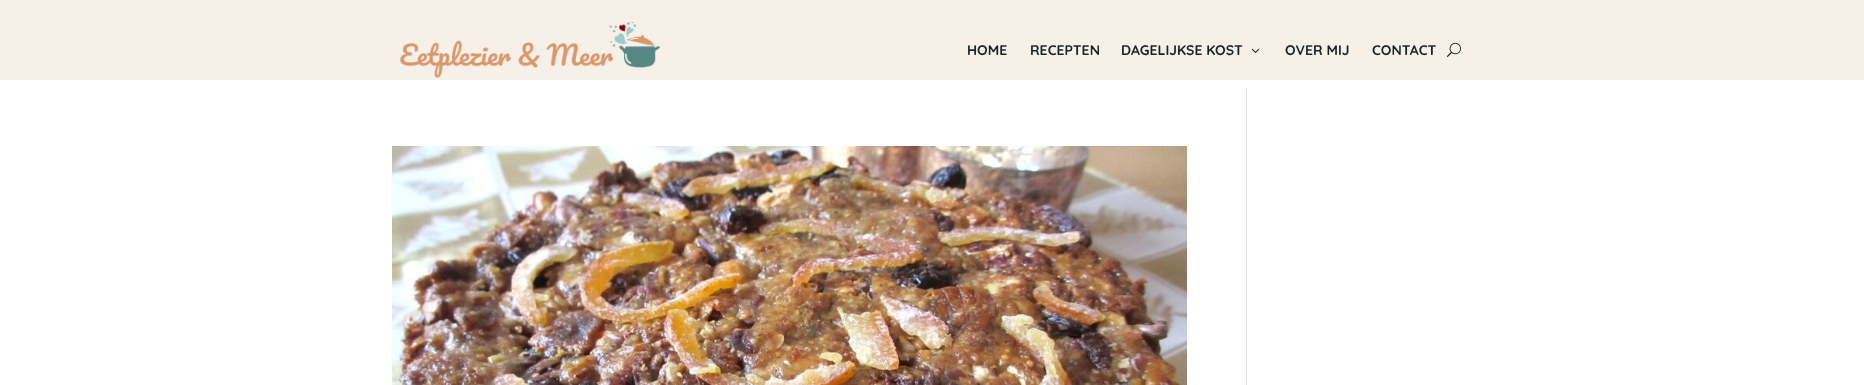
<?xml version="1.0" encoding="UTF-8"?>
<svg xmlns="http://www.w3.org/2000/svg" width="1864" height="385">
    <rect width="100%" height="100%" fill="#FFFFFF"/>
    <rect x="0" y="0" width="1864" height="80" fill="#F6F0E9"/>
    <image x="399" y="22" width="262" height="56" href="img_01.png"/>
    <text x="967" y="55" font-family="Quicksand" font-size="14" font-weight="300" fill="#172625">HOME</text>
    <text x="1030" y="55" font-family="Quicksand" font-size="14" font-weight="300" fill="#172625">RECEPTEN</text>
    <text x="1121" y="55" font-family="Quicksand" font-size="14" font-weight="300" fill="#172625">DAGELIJKSE KOST</text>
    <image x="1251" y="48" width="9" height="5" href="img_02.png"/>
    <text x="1285" y="55" font-family="Quicksand" font-size="14" font-weight="300" fill="#172625">OVER MIJ</text>
    <text x="1372" y="55" font-family="Quicksand" font-size="14" font-weight="300" fill="#172625">CONTACT</text>
    <image x="1447" y="42" width="14" height="15" href="img_03.png"/>
    <image x="392" y="146" width="795" height="239" href="img_04.png"/>
    <rect x="1246" y="88" width="1" height="297" fill="#E2E2E2"/>
</svg>
